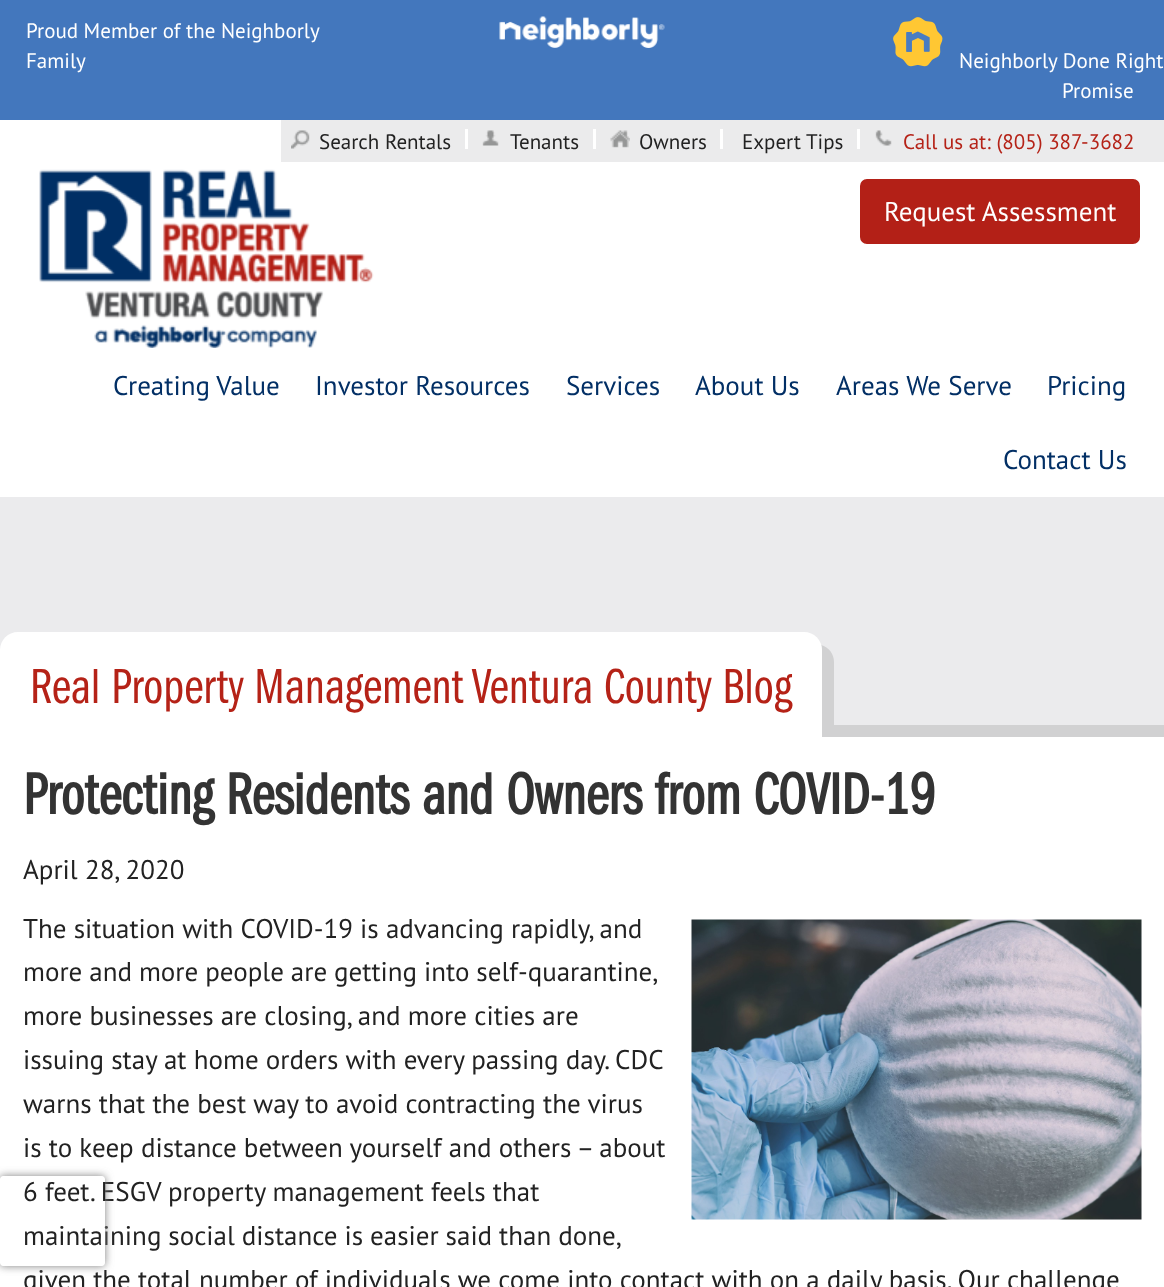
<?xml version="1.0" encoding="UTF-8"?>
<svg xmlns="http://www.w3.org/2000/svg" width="1164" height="1287">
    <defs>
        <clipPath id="clip1"><rect x="0" y="497" width="1164" height="240"/></clipPath>
        <clipPath id="clip2"><path d="M 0 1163 H 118 V 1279 H 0 Z M 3 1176 H 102 C 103.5 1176 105 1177.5 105 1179 V 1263 C 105 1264.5 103.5 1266 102 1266 H 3 C 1.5 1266 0 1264.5 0 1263 V 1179 C 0 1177.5 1.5 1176 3 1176 Z" clip-rule="evenodd"/></clipPath>
        <filter id="blur1" x="-50%" y="-200%" width="200%" height="500%"><feGaussianBlur stdDeviation="4"/></filter>
    </defs>
    <rect width="100%" height="100%" fill="#4377BD"/>
    <text font-family="PT Sans" font-size="21" fill="#FFFFFF">
        <tspan x="26" y="38">Proud Member of the Neighborly</tspan>
        <tspan x="26" y="68">Family</tspan>
    </text>
    <image x="499" y="16" width="166" height="32" href="img_01.png"/>
    <image x="893" y="17" width="50" height="50" href="img_02.png"/>
    <text x="959" y="68" font-family="PT Sans" font-size="21" fill="#FFFFFF">Neighborly Done Right</text>
    <text x="1062" y="98" font-family="PT Sans" font-size="21" fill="#FFFFFF">Promise</text>
    <rect x="0" y="120" width="1164" height="377" fill="#FFFFFF"/>
    <rect x="281" y="120" width="883" height="42" fill="#EBEBEC"/>
    <image x="291" y="130" width="19" height="19" href="img_03.png"/>
    <text x="319" y="149" font-family="PT Sans" font-size="21" fill="#222222">Search Rentals</text>
    <rect x="465" y="129" width="3" height="20" fill="#FFFFFF"/>
    <image x="482" y="130" width="17" height="16" href="img_04.png"/>
    <text x="510" y="149" font-family="PT Sans" font-size="21" fill="#222222">Tenants</text>
    <rect x="593" y="129" width="3" height="20" fill="#FFFFFF"/>
    <image x="610" y="130" width="20" height="18" href="img_05.png"/>
    <text x="639" y="149" font-family="PT Sans" font-size="21" fill="#222222">Owners</text>
    <rect x="720" y="129" width="3" height="20" fill="#FFFFFF"/>
    <text x="742" y="149" font-family="PT Sans" font-size="21" fill="#222222">Expert Tips</text>
    <rect x="857" y="129" width="3" height="20" fill="#FFFFFF"/>
    <image x="875" y="130" width="17" height="16" href="img_06.png"/>
    <text x="903" y="149" font-family="PT Sans" font-size="21" fill="#B52217">Call us at: (805) 387-3682</text>
    <image x="39" y="169" width="335" height="179" href="img_07.png"/>
    <rect x="859" y="178" width="282" height="67" rx="8" fill="#B32017" stroke="#FFFFFF" stroke-width="2"/>
    <text x="884" y="221" font-family="PT Sans" font-size="27" fill="#FFFFFF">Request Assessment</text>
    <text x="113" y="395" font-family="PT Sans" font-size="27" fill="#022F65">Creating Value</text>
    <text x="315" y="395" font-family="PT Sans" font-size="27" fill="#022F65">Investor Resources</text>
    <text x="566" y="395" font-family="PT Sans" font-size="27" fill="#022F65">Services</text>
    <text x="695" y="395" font-family="PT Sans" font-size="27" fill="#022F65">About Us</text>
    <text x="836" y="395" font-family="PT Sans" font-size="27" fill="#022F65">Areas We Serve</text>
    <text x="1047" y="395" font-family="PT Sans" font-size="27" fill="#022F65">Pricing</text>
    <text x="1003" y="469" font-family="PT Sans" font-size="27" fill="#022F65">Contact Us</text>
    <rect x="0" y="497" width="1164" height="228" fill="#EBEBED"/>
    <rect x="834" y="725" width="330" height="12" fill="#D1D1D2"/>
    <g clip-path="url(#clip1)">
        <path d="M 12 748 V 761 H 834 V 662 C 834 654 829 647 821 645 L 822 650 V 748 Z" fill="#D1D1D2"/>
    </g>
    <path d="M 18 632 H 804 C 814 632 822 640 822 650 V 737 H 0 V 650 C 0 640 8 632 18 632 Z" fill="#FFFFFF"/>
    <text x="30" y="703" font-family="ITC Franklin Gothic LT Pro" font-size="51" fill="#B52217">Real Property Management Ventura County Blog</text>
    <rect x="0" y="737" width="1164" height="550" fill="#FFFFFF"/>
    <text x="23" y="814" font-family="ITC Franklin Gothic LT Pro" font-size="60" font-weight="700" fill="#333333">Protecting Residents and Owners from COVID-19</text>
    <text x="23" y="879" font-family="PT Sans" font-size="27" fill="#222222">April 28, 2020</text>
    <text x="23" y="938" font-family="PT Sans" font-size="27" fill="#222222">The situation with COVID-19 is advancing rapidly, and</text>
    <image x="691" y="919" width="451" height="301" href="img_08.png"/>
    <text font-family="PT Sans" font-size="27" fill="#222222">
        <tspan x="23" y="981" word-spacing="-0.25">more and more people are getting into self-quarantine,</tspan>
        <tspan x="23" y="1025">more businesses are closing, and more cities are</tspan>
        <tspan x="23" y="1069">issuing stay at home orders with every passing day. CDC</tspan>
        <tspan x="23" y="1113">warns that the best way to avoid contracting the virus</tspan>
        <tspan x="23" y="1157">is to keep distance between yourself and others – about</tspan>
        <tspan x="23" y="1201">6 feet. ESGV property management feels that</tspan>
        <tspan x="23" y="1245" word-spacing="-0.25">maintaining social distance is easier said than done,</tspan>
        <tspan x="23" y="1289">given the total number of individuals we come into contact with on a daily basis. Our challenge</tspan>
    </text>
    <g clip-path="url(#clip2)">
        <rect x="0" y="1176" width="105" height="90" rx="3" fill="#808080" filter="url(#blur1)"/>
    </g>
</svg>
